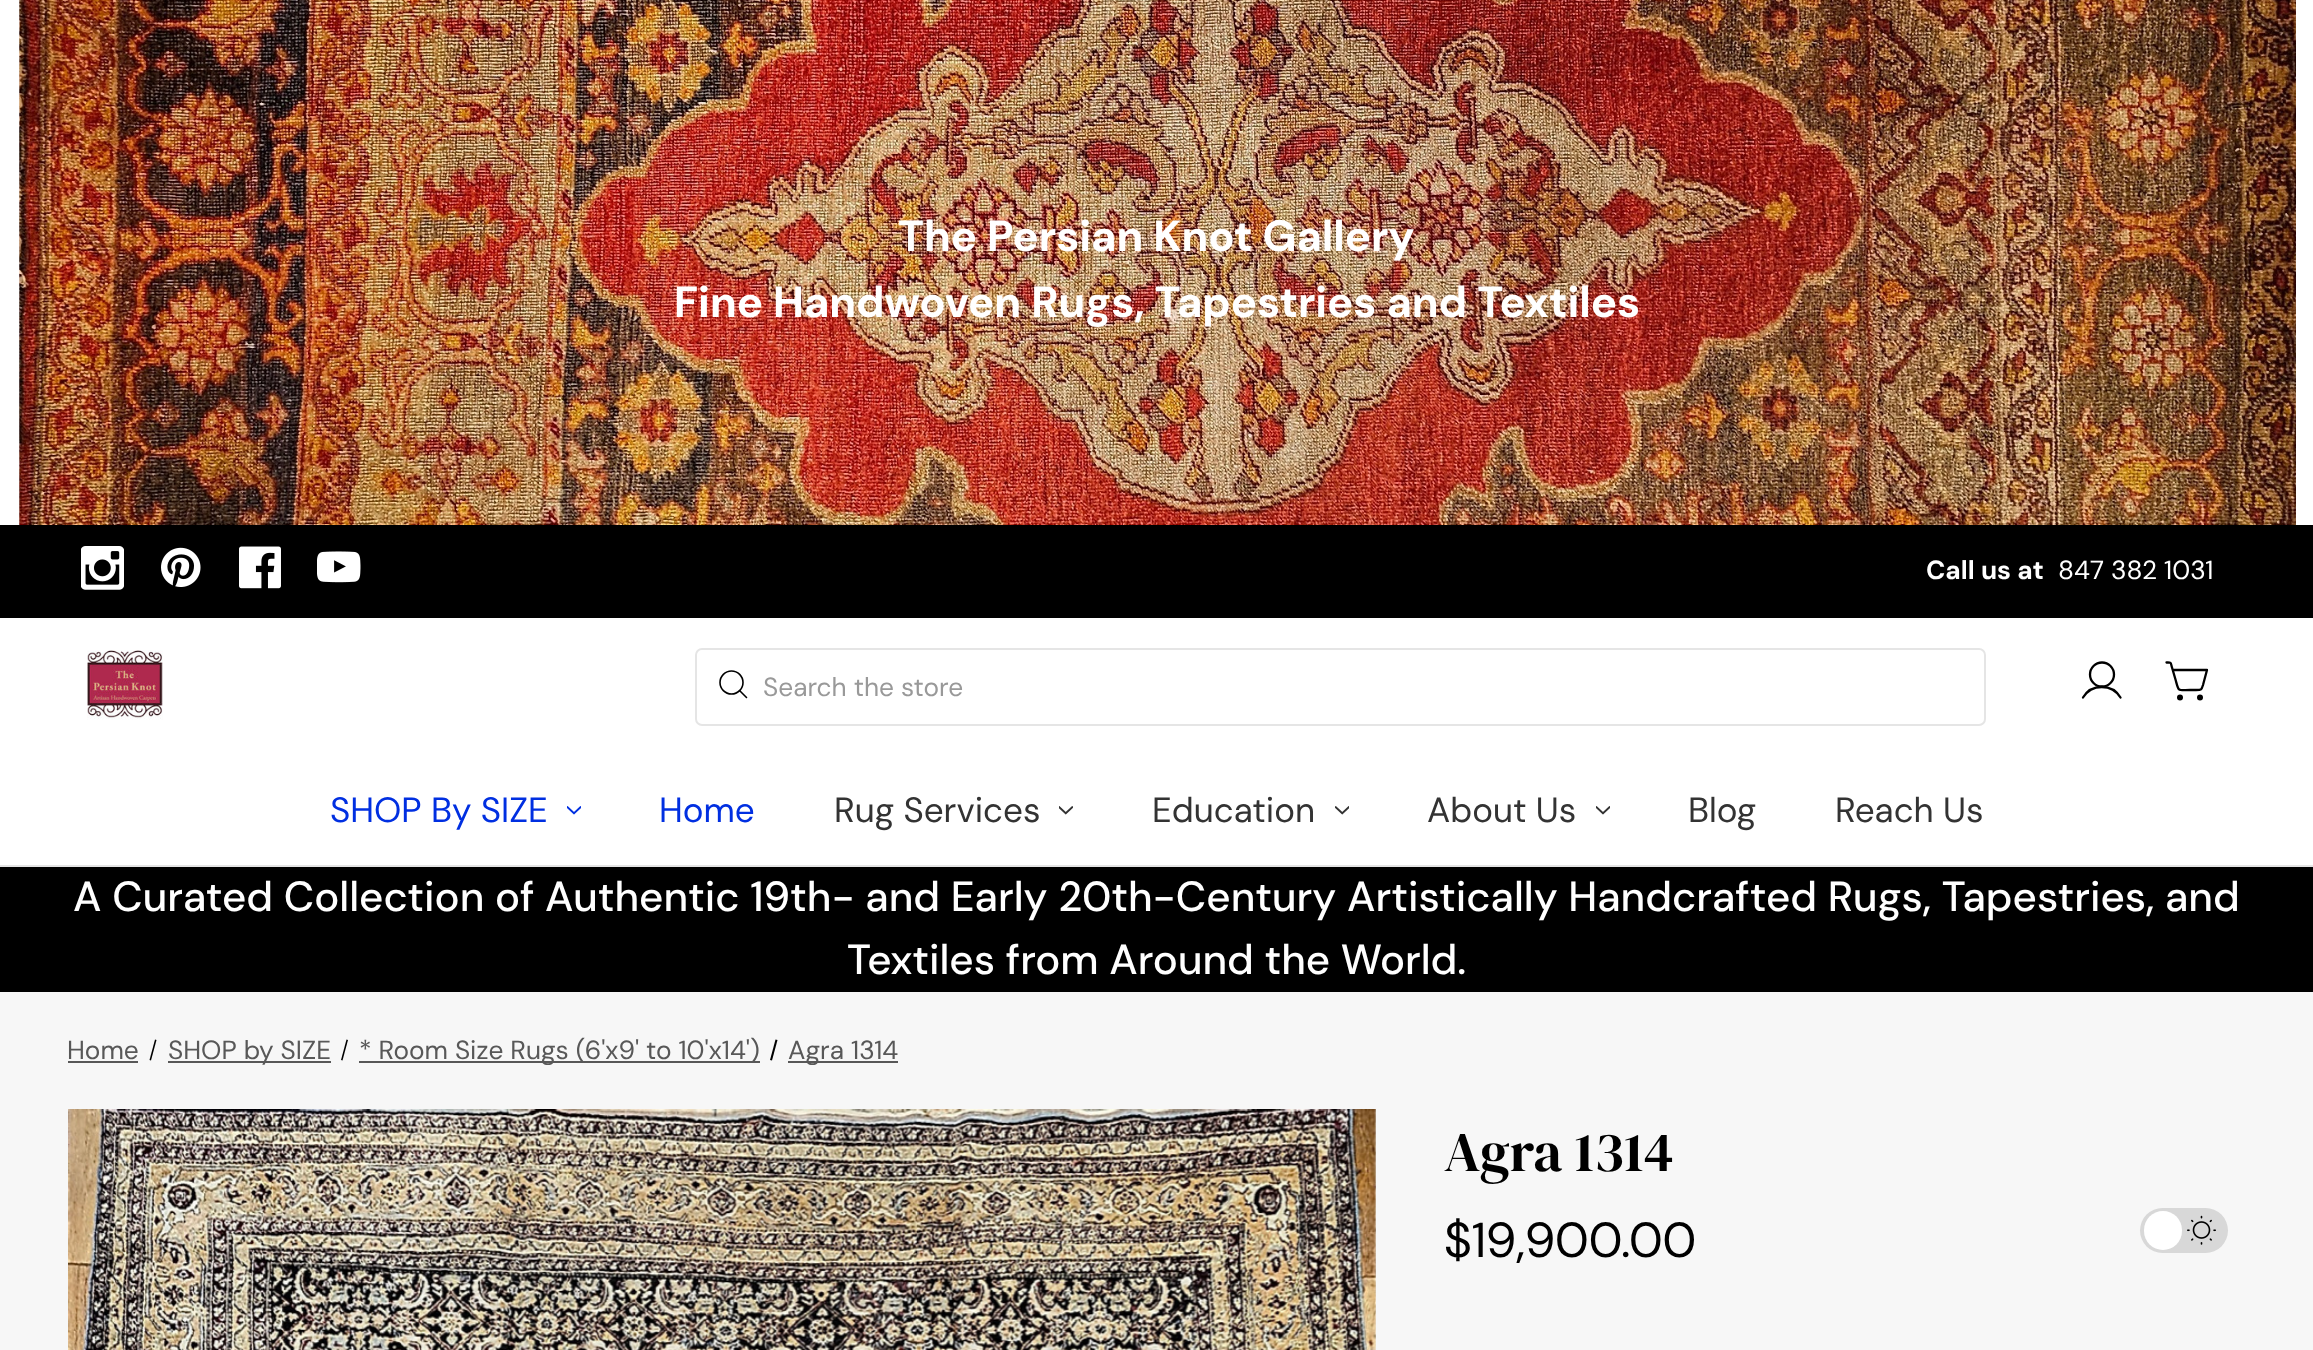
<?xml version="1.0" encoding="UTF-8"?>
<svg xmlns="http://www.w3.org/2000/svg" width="2313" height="1350">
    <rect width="100%" height="100%" fill="#F7F7F7"/>
    <rect x="0" y="0" width="2313" height="865" fill="#FFFFFF"/>
    <image x="19" y="0" width="2277" height="525" href="img_01.png"/>
    <text x="898" y="251" font-family="DM Sans" font-size="43.75" font-weight="700" fill="#FFFFFF">The Persian Knot Gallery</text>
    <text x="674" y="317" font-family="DM Sans" font-size="43.75" font-weight="700" fill="#FFFFFF">Fine Handwoven Rugs, Tapestries and Textiles</text>
    <rect x="0" y="525" width="2313" height="93" fill="#000000"/>
    <image x="81" y="546" width="43" height="44" href="img_02.png"/>
    <image x="161" y="547" width="40" height="40" href="img_03.png"/>
    <image x="239" y="546" width="42" height="43" href="img_04.png"/>
    <image x="317" y="551" width="44" height="32" href="img_05.png"/>
    <text x="1926" y="579" font-family="'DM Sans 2'" font-size="26.25" font-weight="700" fill="#FFFFFF">Call us at</text>
    <text x="2058" y="579" font-family="DM Sans" font-size="26.25" fill="#FFFFFF">847 382 1031</text>
    <image x="87" y="650" width="76" height="70" href="img_06.png"/>
    <rect x="696" y="649" width="1289" height="76" rx="6" fill="none" stroke="#E5E5E5" stroke-width="2"/>
    <circle cx="731.5" cy="682.5" r="11.5" fill="none" stroke="#000000" stroke-width="1.6"/>
    <path d="M 739.5 690.5 L 746.5 697.5" fill="none" stroke="#000000" stroke-width="1.6" stroke-linecap="round" stroke-linejoin="round"/>
    <text x="763" y="696" font-family="DM Sans" font-size="26.25" fill="#999999">Search the store</text>
    <circle cx="2102" cy="674.5" r="12" fill="none" stroke="#000000" stroke-width="2.3"/>
    <path d="M 2083 697.5 C 2091.5 683.5 2112 683.5 2120.5 697.5" fill="none" stroke="#000000" stroke-width="2.3" stroke-linecap="round" stroke-linejoin="round"/>
    <circle cx="2180" cy="697.5" r="3" fill="#000000"/>
    <circle cx="2200" cy="697.5" r="3" fill="#000000"/>
    <path d="M 2173 670 H 2207 L 2203 685 C 2201.5 690 2201.5 690 2196 690 H 2190 C 2177 690 2179 692 2175.5 679.5 L 2172 667.5 C 2170.5 662 2171.5 662.5 2166.5 662.5" fill="none" stroke="#000000" stroke-width="2.3" stroke-linecap="round" stroke-linejoin="round"/>
    <rect x="0" y="865" width="2313" height="2" fill="#E5E5E5"/>
    <text x="330" y="822" font-family="'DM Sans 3'" font-size="35" fill="#002FE1">SHOP By SIZE</text>
    <image x="567" y="806" width="14" height="9" href="img_07.png"/>
    <text x="659" y="822" font-family="'DM Sans 3'" font-size="35" fill="#002FE1">Home</text>
    <text x="834" y="822" font-family="'DM Sans 3'" font-size="35" fill="#333333">Rug Services</text>
    <image x="1059" y="806" width="14" height="9" href="img_08.png"/>
    <text x="1152" y="822" font-family="'DM Sans 3'" font-size="35" fill="#333333">Education</text>
    <image x="1335" y="806" width="14" height="9" href="img_09.png"/>
    <text x="1427" y="822" font-family="'DM Sans 3'" font-size="35" fill="#333333">About Us</text>
    <image x="1596" y="806" width="14" height="9" href="img_10.png"/>
    <text x="1688" y="822" font-family="'DM Sans 3'" font-size="35" fill="#333333">Blog</text>
    <text x="1835" y="822" font-family="'DM Sans 3'" font-size="35" fill="#333333">Reach Us</text>
    <rect x="0" y="867" width="2313" height="125" fill="#000000"/>
    <text x="73" y="911" font-family="DM Sans" font-size="42" font-weight="500" fill="#FFFFFF">A Curated Collection of Authentic 19th- and Early 20th-Century Artistically Handcrafted Rugs, Tapestries, and</text>
    <text x="847" y="974" font-family="DM Sans" font-size="42" font-weight="500" fill="#FFFFFF">Textiles from Around the World.</text>
    <text x="67" y="1059" font-family="DM Sans" font-size="26.25" fill="#585858">Home</text>
    <rect x="68" y="1061" width="70" height="2" fill="#585858"/>
    <path d="M 155 1039.5 L 156.5 1040 L 151 1060.5 L 149.5 1060 Z" fill="#000000"/>
    <rect x="168" y="1061" width="163" height="2" fill="#585858"/>
    <text x="168" y="1059" font-family="DM Sans" font-size="26.25" fill="#585858">SHOP by SIZE</text>
    <path d="M 346.5 1039.5 L 348 1040 L 342.5 1060.5 L 341 1060 Z" fill="#000000"/>
    <rect x="359" y="1061" width="401" height="2" fill="#585858"/>
    <text x="359" y="1059" font-family="DM Sans" font-size="26.25" fill="#585858">* Room Size Rugs (6'x9' to 10'x14')</text>
    <path d="M 775.5 1039.5 L 777.5 1040 L 772 1060.5 L 770 1060 Z" fill="#000000"/>
    <rect x="788" y="1061" width="110" height="2" fill="#585858"/>
    <text x="788" y="1059" font-family="DM Sans" font-size="26.25" fill="#585858">Agra 1314</text>
    <image x="68" y="1109" width="1308" height="241" href="img_11.png"/>
    <text x="1444" y="1171" font-family="DM Serif Display" font-size="56" fill="#000000">Agra 1314</text>
    <text x="1444" y="1257" font-family="'DM Sans 2'" font-size="49" fill="#000000">$19,900.00</text>
    <rect x="2140" y="1208" width="88" height="45" rx="22.5" fill="#D8D8D8"/>
    <rect x="2144" y="1211" width="38" height="39" rx="19" fill="#FFFFFF"/>
    <image x="2187" y="1215" width="29" height="30" href="img_12.png"/>
</svg>
